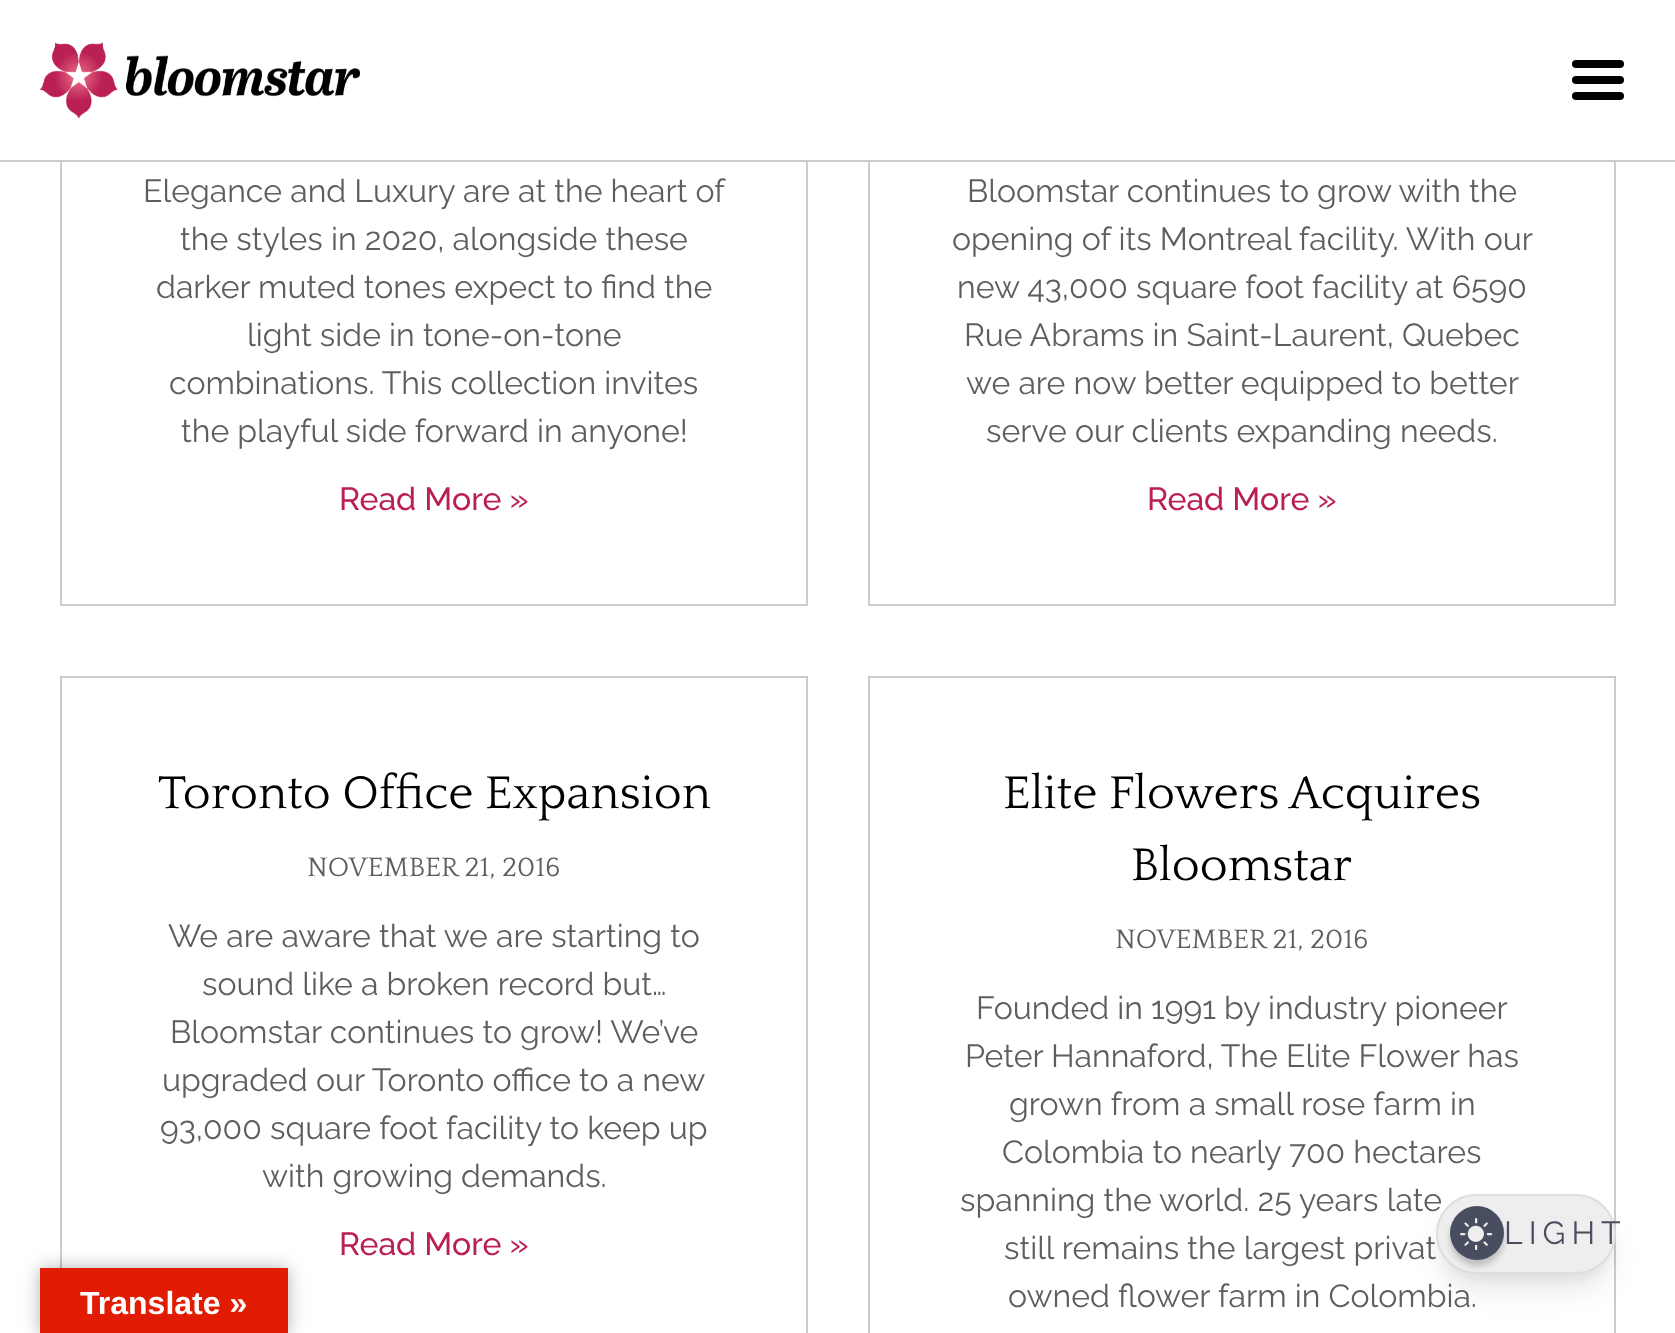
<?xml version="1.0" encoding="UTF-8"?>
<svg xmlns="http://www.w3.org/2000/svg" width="1675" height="1333">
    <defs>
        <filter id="blur1" x="-50%" y="-200%" width="200%" height="500%"><feGaussianBlur stdDeviation="6"/></filter>
        <filter id="blur2" x="-50%" y="-200%" width="200%" height="500%"><feGaussianBlur stdDeviation="15"/></filter>
        <filter id="blur3" x="-50%" y="-200%" width="200%" height="500%"><feGaussianBlur stdDeviation="3"/></filter>
        <filter id="blur4" x="-50%" y="-200%" width="200%" height="500%"><feGaussianBlur stdDeviation="9"/></filter>
    </defs>
    <rect width="100%" height="100%" fill="#FFFFFF"/>
    <rect x="61" y="-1" width="746" height="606" fill="none" stroke="#CCCCCC" stroke-width="2"/>
    <rect x="869" y="-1" width="746" height="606" fill="none" stroke="#CCCCCC" stroke-width="2"/>
    <rect x="60" y="0" width="1556" height="160" fill="#FFFFFF"/>
    <rect x="0" y="160" width="1675" height="2" fill="#CCCCCC"/>
    <image x="40" y="42" width="320" height="77" href="img_01.png"/>
    <rect x="1572" y="76" width="52" height="8" rx="4" fill="#000000"/>
    <rect x="1572" y="60" width="52" height="8" rx="4" fill="#000000"/>
    <rect x="1572" y="92" width="52" height="8" rx="4" fill="#000000"/>
    <text x="143" y="202" font-family="Raleway" font-size="32" fill="#5D5D62">Elegance and Luxury are at the heart of</text>
    <text x="180" y="250" font-family="Raleway" font-size="32" fill="#5D5D62">the styles in 2020, alongside these</text>
    <text x="156" y="298" font-family="Raleway" font-size="32" fill="#5D5D62">darker muted tones expect to find the</text>
    <text x="247" y="346" font-family="Raleway" font-size="32" fill="#5D5D62">light side in tone-on-tone</text>
    <text x="169" y="394" font-family="Raleway" font-size="32" fill="#5D5D62">combinations. This collection invites</text>
    <text x="181" y="442" font-family="Raleway" font-size="32" fill="#5D5D62">the playful side forward in anyone!</text>
    <text x="339" y="510" font-family="Raleway" font-size="32" font-weight="500" fill="#BA2054">Read More »</text>
    <text x="967" y="202" font-family="Raleway" font-size="32" fill="#5D5D62">Bloomstar continues to grow with the</text>
    <text x="952" y="250" font-family="Raleway" font-size="32" fill="#5D5D62">opening of its Montreal facility. With our</text>
    <text x="957" y="298" font-family="Raleway" font-size="32" fill="#5D5D62">new 43,000 square foot facility at 6590</text>
    <text x="964" y="346" font-family="Raleway" font-size="32" fill="#5D5D62">Rue Abrams in Saint-Laurent, Quebec</text>
    <text x="966" y="394" font-family="Raleway" font-size="32" fill="#5D5D62">we are now better equipped to better</text>
    <text x="986" y="442" font-family="Raleway" font-size="32" fill="#5D5D62">serve our clients expanding needs.</text>
    <text x="1147" y="510" font-family="Raleway" font-size="32" font-weight="500" fill="#BA2054">Read More »</text>
    <rect x="61" y="677" width="746" height="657" fill="none" stroke="#CCCCCC" stroke-width="2"/>
    <text x="158" y="808" font-family="Quattrocento" font-size="48" fill="#000000">Toronto Office Expansion</text>
    <text x="307" y="876" font-family="Quattrocento" font-size="28" fill="#5D5D62">NOVEMBER 21, 2016</text>
    <text x="168" y="947" font-family="Raleway" font-size="32" fill="#5D5D62">We are aware that we are starting to</text>
    <text x="202" y="995" font-family="Raleway" font-size="32" fill="#5D5D62">sound like a broken record but…</text>
    <text x="170" y="1043" font-family="Raleway" font-size="32" fill="#5D5D62">Bloomstar continues to grow! We’ve</text>
    <text x="162" y="1091" font-family="Raleway" font-size="32" fill="#5D5D62">upgraded our Toronto office to a new</text>
    <text x="160" y="1139" font-family="Raleway" font-size="32" fill="#5D5D62">93,000 square foot facility to keep up</text>
    <text x="262" y="1187" font-family="Raleway" font-size="32" fill="#5D5D62">with growing demands.</text>
    <text x="339" y="1255" font-family="Raleway" font-size="32" font-weight="500" fill="#BA2054">Read More »</text>
    <rect x="869" y="677" width="746" height="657" fill="none" stroke="#CCCCCC" stroke-width="2"/>
    <text x="1003" y="808" font-family="Quattrocento" font-size="48" fill="#000000">Elite Flowers Acquires</text>
    <text x="1131" y="880" font-family="Quattrocento" font-size="48" fill="#000000">Bloomstar</text>
    <text x="1115" y="948" font-family="Quattrocento" font-size="28" fill="#5D5D62">NOVEMBER 21, 2016</text>
    <text x="976" y="1019" font-family="Raleway" font-size="32" fill="#5D5D62">Founded in 1991 by industry pioneer</text>
    <text x="965" y="1067" font-family="Raleway" font-size="32" fill="#5D5D62">Peter Hannaford, The Elite Flower has</text>
    <text x="1009" y="1115" font-family="Raleway" font-size="32" fill="#5D5D62">grown from a small rose farm in</text>
    <text x="1002" y="1163" font-family="Raleway" font-size="32" fill="#5D5D62">Colombia to nearly 700 hectares</text>
    <text x="960" y="1211" font-family="Raleway" font-size="32" fill="#5D5D62">spanning the world. 25 years late</text>
    <text x="1004" y="1259" font-family="Raleway" font-size="32" fill="#5D5D62">still remains the largest privat</text>
    <text x="1008" y="1307" font-family="Raleway" font-size="32" fill="#5D5D62">owned flower farm in Colombia.</text>
    <rect x="1440" y="1206" width="172" height="72" rx="36" fill="#000000" fill-opacity="0.05" filter="url(#blur1)"/>
    <rect x="1442" y="1220" width="168" height="68" rx="34" fill="#000000" fill-opacity="0.1" filter="url(#blur2)"/>
    <rect x="1437" y="1195" width="178" height="78" rx="39" fill="#EEEEEE" stroke="#DDDDDD" stroke-width="2"/>
    <rect x="1450" y="1212" width="54" height="54" rx="27" fill="#000000" fill-opacity="0.2" filter="url(#blur3)"/>
    <circle cx="1477" cy="1233" r="27" fill="#484D60"/>
    <image x="1460" y="1218" width="32" height="32" href="img_02.png"/>
    <text x="1504" y="1244" font-family="Raleway" font-size="32" letter-spacing="6" fill="#484D60">LIGHT</text>
    <rect x="40" y="1268" width="248" height="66" fill="#000000" fill-opacity="0.3" filter="url(#blur4)"/>
    <rect x="40" y="1268" width="248" height="65" fill="#E21C02"/>
    <text x="80" y="1314" font-family="Liberation Sans" font-size="32" font-weight="700" fill="#FFFFFF">Translate »</text>
</svg>
